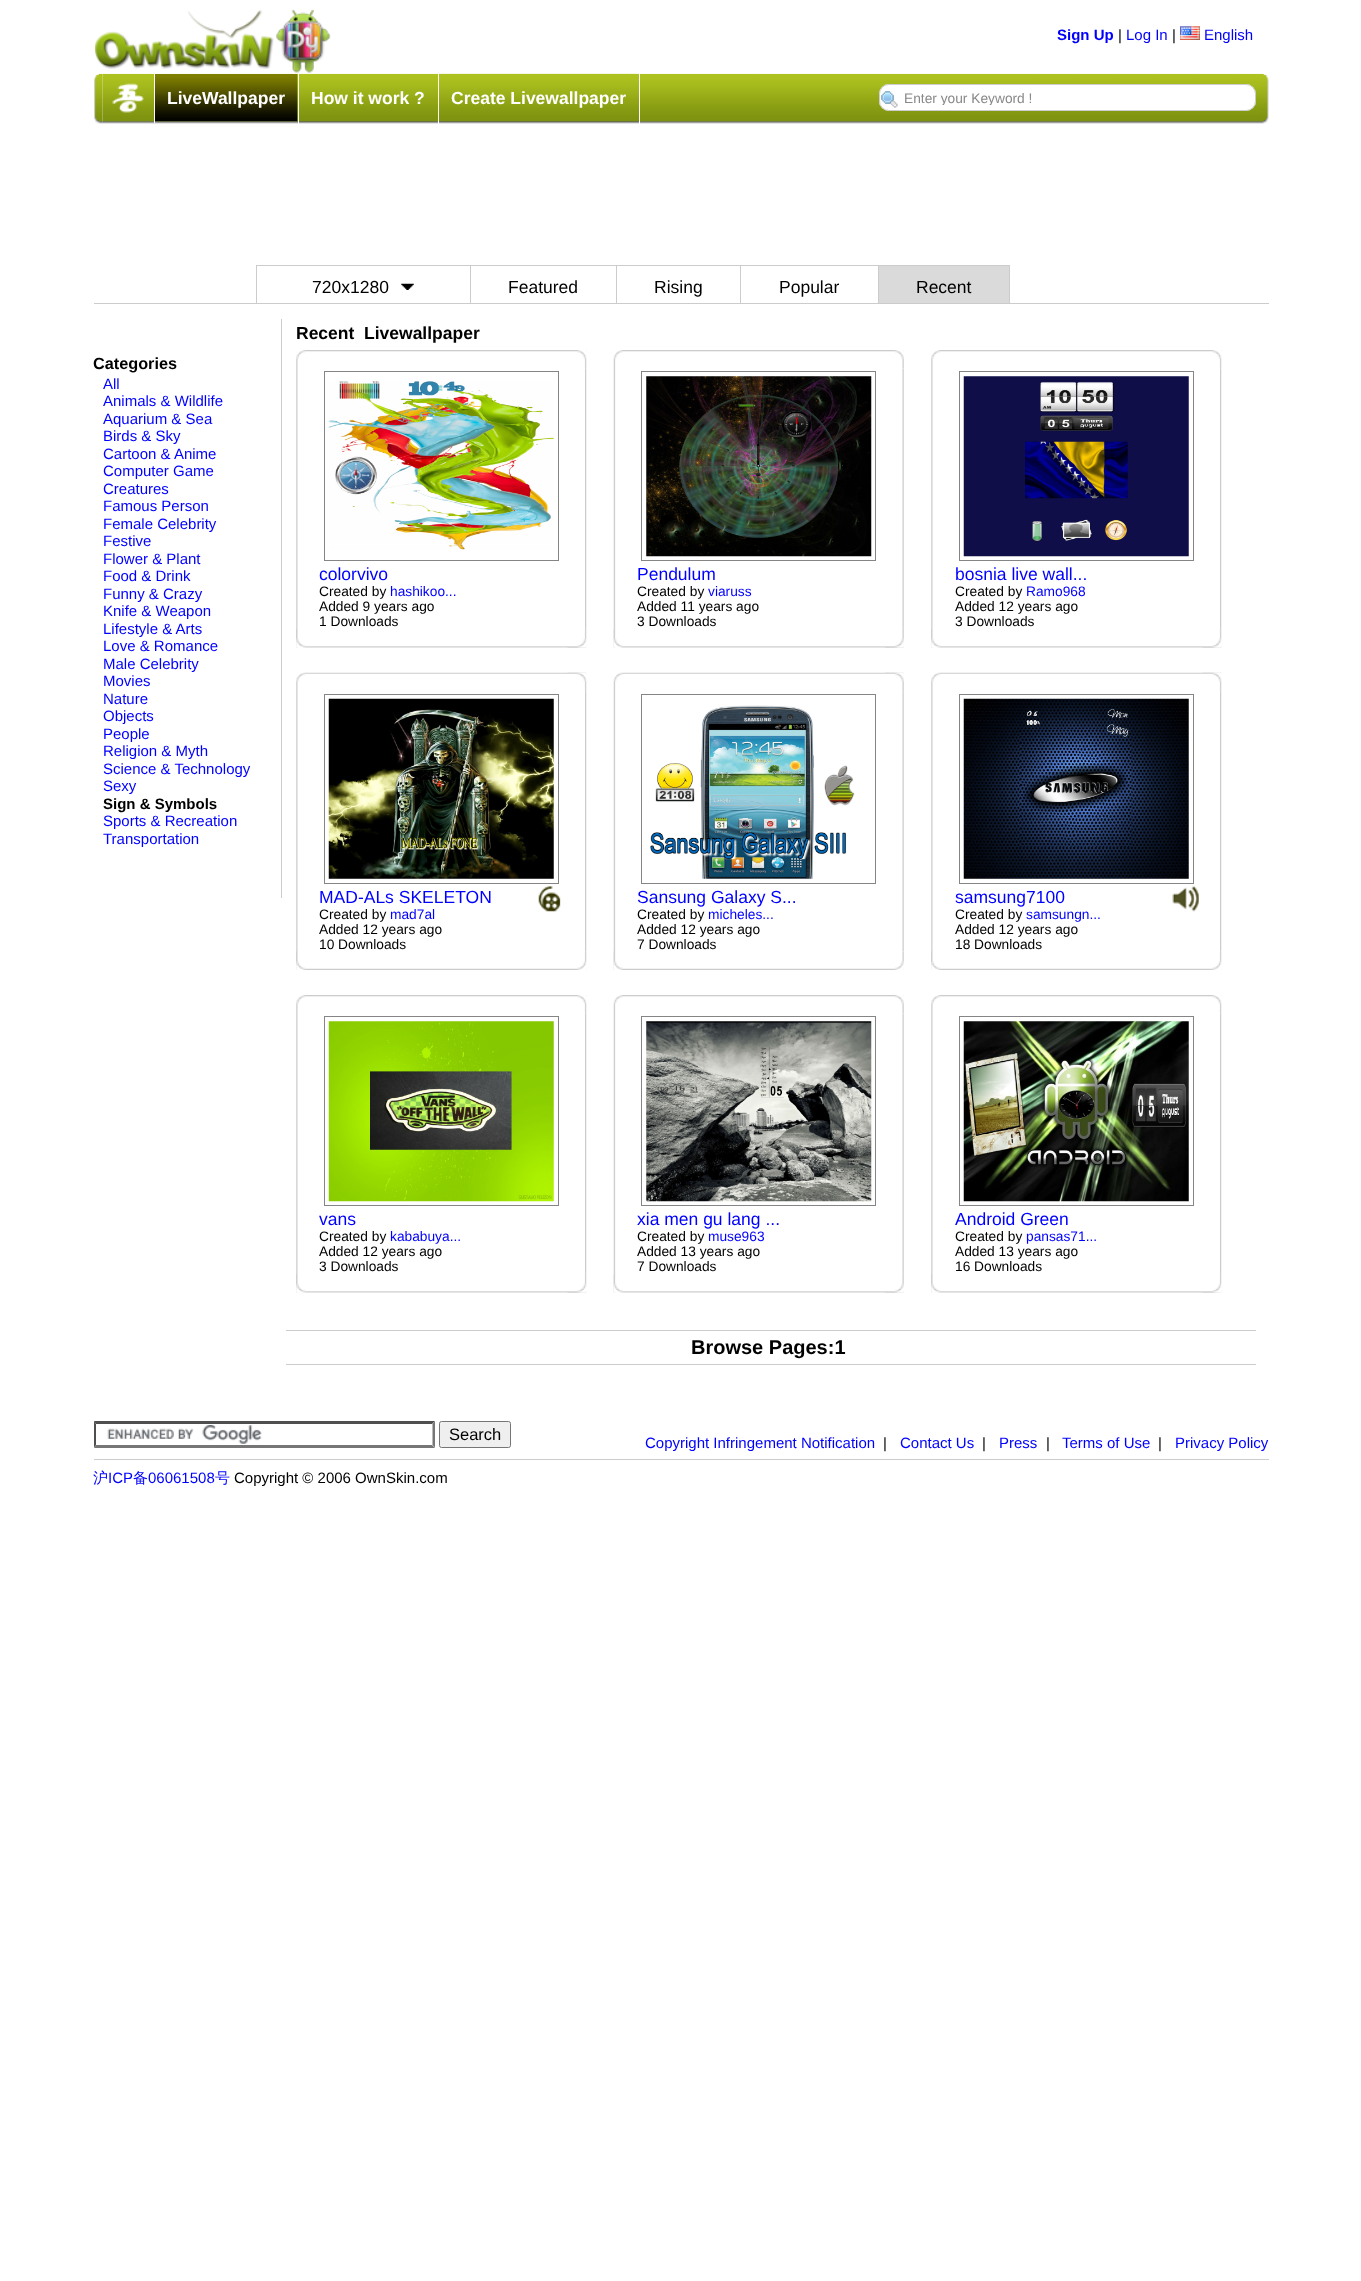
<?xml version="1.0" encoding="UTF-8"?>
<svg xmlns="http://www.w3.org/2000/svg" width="1361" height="2281">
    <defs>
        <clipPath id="clip1"><rect x="905" y="90" width="350" height="15"/></clipPath>
    </defs>
    <rect width="100%" height="100%" fill="#FFFFFF"/>
    <image x="94" y="9" width="237" height="64" href="img_01.png"/>
    <text x="1057" y="40" font-family="Liberation Sans" font-size="15" font-weight="700" fill="#0000FF">Sign Up</text>
    <text x="1118" y="40" font-family="Liberation Sans" font-size="15" fill="#000000">|</text>
    <text x="1126" y="40" font-family="Liberation Sans" font-size="15" fill="#0000FF">Log In</text>
    <text x="1172" y="40" font-family="Liberation Sans" font-size="15" fill="#000000">|</text>
    <image x="1180" y="26" width="20" height="14" href="img_02.png"/>
    <text x="1204" y="40" font-family="Liberation Sans" font-size="15" fill="#0000FF">English</text>
    <image x="94" y="73" width="9" height="51" href="img_03.png"/>
    <image x="102" y="73" width="1158" height="51" href="img_04.png"/>
    <rect x="154" y="74" width="1" height="49" fill="#FFFFFF"/>
    <image x="112" y="83" width="32" height="30" href="img_05.png"/>
    <rect x="298" y="74" width="1" height="50" fill="#FFFFFF"/>
    <image x="155" y="74" width="143" height="48" href="img_06.png"/>
    <text x="167" y="104" font-family="Liberation Sans" font-size="17.5" font-weight="700" fill="#FFFFFF">LiveWallpaper</text>
    <rect x="438" y="74" width="1" height="50" fill="#FFFFFF"/>
    <image x="298" y="74" width="139" height="48" href="img_07.png"/>
    <text x="311" y="104" font-family="Liberation Sans" font-size="17.5" font-weight="700" fill="#FFFFFF">How it work ?</text>
    <rect x="639" y="74" width="1" height="50" fill="#FFFFFF"/>
    <image x="438" y="73" width="201" height="49" href="img_08.png"/>
    <text x="451" y="104" font-family="Liberation Sans" font-size="17.5" font-weight="700" fill="#FFFFFF">Create Livewallpaper</text>
    <rect x="879" y="84" width="377" height="27" rx="10" fill="#FFFFFF"/>
    <image x="881" y="91" width="17" height="17" href="img_09.png"/>
    <rect x="879.5" y="84.5" width="376" height="26" rx="9.5" fill="none" stroke="#CCCCCC"/>
    <g clip-path="url(#clip1)">
        <text x="904" y="103" font-family="Liberation Sans" font-size="13.75" fill="#888888">Enter your Keyword !</text>
    </g>
    <image x="1260" y="73" width="9" height="51" href="img_10.png"/>
    <rect x="94" y="303" width="1175" height="1" fill="#CCCCCC"/>
    <rect x="256" y="265" width="754" height="1" fill="#CCCCCC"/>
    <rect x="470" y="265" width="1" height="38" fill="#CCCCCC"/>
    <rect x="256" y="265" width="1" height="38" fill="#CCCCCC"/>
    <text x="312" y="293" font-family="Liberation Sans" font-size="17.5" fill="#000000">720x1280</text>
    <image x="401" y="283" width="13" height="7" href="img_11.png"/>
    <rect x="616" y="265" width="1" height="38" fill="#CCCCCC"/>
    <text x="508" y="293" font-family="Liberation Sans" font-size="17.5" fill="#000000">Featured</text>
    <rect x="740" y="265" width="1" height="38" fill="#CCCCCC"/>
    <text x="654" y="293" font-family="Liberation Sans" font-size="17.5" fill="#000000">Rising</text>
    <rect x="878" y="265" width="1" height="38" fill="#CCCCCC"/>
    <text x="779" y="293" font-family="Liberation Sans" font-size="17.5" fill="#000000">Popular</text>
    <rect x="879" y="266" width="130" height="37" fill="#DADADA"/>
    <rect x="1009" y="265" width="1" height="38" fill="#CCCCCC"/>
    <text x="916" y="293" font-family="Liberation Sans" font-size="17.5" fill="#000000">Recent</text>
    <rect x="281" y="319" width="1" height="579" fill="#CCCCCC"/>
    <text x="93" y="369" font-family="Liberation Sans" font-size="16.25" font-weight="700" fill="#000000">Categories</text>
    <text font-family="Liberation Sans" font-size="15" fill="#0000FF">
        <tspan x="103" y="389">All</tspan>
        <tspan x="103" y="406">Animals &amp; Wildlife</tspan>
        <tspan x="103" y="424">Aquarium &amp; Sea</tspan>
        <tspan x="103" y="441">Birds &amp; Sky</tspan>
        <tspan x="103" y="459">Cartoon &amp; Anime</tspan>
        <tspan x="103" y="476">Computer Game</tspan>
        <tspan x="103" y="494">Creatures</tspan>
        <tspan x="103" y="511">Famous Person</tspan>
        <tspan x="103" y="529">Female Celebrity</tspan>
        <tspan x="103" y="546">Festive</tspan>
        <tspan x="103" y="564">Flower &amp; Plant</tspan>
        <tspan x="103" y="581">Food &amp; Drink</tspan>
        <tspan x="103" y="599">Funny &amp; Crazy</tspan>
        <tspan x="103" y="616">Knife &amp; Weapon</tspan>
        <tspan x="103" y="634">Lifestyle &amp; Arts</tspan>
        <tspan x="103" y="651">Love &amp; Romance</tspan>
        <tspan x="103" y="669">Male Celebrity</tspan>
        <tspan x="103" y="686">Movies</tspan>
        <tspan x="103" y="704">Nature</tspan>
        <tspan x="103" y="721">Objects</tspan>
        <tspan x="103" y="739">People</tspan>
        <tspan x="103" y="756">Religion &amp; Myth</tspan>
        <tspan x="103" y="774">Science &amp; Technology</tspan>
        <tspan x="103" y="791">Sexy</tspan>
    </text>
    <text x="103" y="809" font-family="Liberation Sans" font-size="15" font-weight="700" fill="#000000">Sign &amp; Symbols</text>
    <text font-family="Liberation Sans" font-size="15" fill="#0000FF">
        <tspan x="103" y="826">Sports &amp; Recreation</tspan>
        <tspan x="103" y="844">Transportation</tspan>
    </text>
    <text x="296" y="339" font-family="Liberation Sans" font-size="17.5" font-weight="700" fill="#000000">Recent</text>
    <text x="364" y="339" font-family="Liberation Sans" font-size="17.5" font-weight="700" fill="#000000">Livewallpaper</text>
    <image x="296" y="350" width="291" height="298" href="img_12.png"/>
    <image x="577" y="350" width="10" height="19" href="img_13.png"/>
    <image x="296" y="629" width="291" height="19" href="img_16.png"/>
    <image x="567" y="628" width="20" height="20" href="img_17.png"/>
    <image x="585" y="368" width="2" height="261" href="img_14.png"/>
    <rect x="324.5" y="371.5" width="234" height="189" fill="none" stroke="#858585"/>
    <image x="328" y="381" width="226" height="169" href="img_15.png"/>
    <text x="319" y="580" font-family="Liberation Sans" font-size="17.5" fill="#0000FF">colorvivo</text>
    <text x="319" y="596" font-family="Liberation Sans" font-size="13.75" fill="#000000">Created by</text>
    <text x="390" y="596" font-family="Liberation Sans" font-size="13.75" fill="#0000FF">hashikoo...</text>
    <text font-family="Liberation Sans" font-size="13.75" fill="#000000">
        <tspan x="319" y="611">Added 9 years ago</tspan>
        <tspan x="319" y="626">1 Downloads</tspan>
    </text>
    <image x="613" y="350" width="291" height="298" href="img_18.png"/>
    <image x="895" y="350" width="9" height="19" href="img_19.png"/>
    <image x="613" y="629" width="291" height="19" href="img_22.png"/>
    <image x="885" y="628" width="19" height="20" href="img_23.png"/>
    <image x="902" y="369" width="2" height="260" href="img_20.png"/>
    <rect x="641.5" y="371.5" width="234" height="189" fill="none" stroke="#858585"/>
    <image x="646" y="376" width="226" height="181" href="img_21.png"/>
    <text x="637" y="580" font-family="Liberation Sans" font-size="17.5" fill="#0000FF">Pendulum</text>
    <text x="637" y="596" font-family="Liberation Sans" font-size="13.75" fill="#000000">Created by</text>
    <text x="708" y="596" font-family="Liberation Sans" font-size="13.75" fill="#0000FF">viaruss</text>
    <text font-family="Liberation Sans" font-size="13.75" fill="#000000">
        <tspan x="637" y="611">Added 11 years ago</tspan>
        <tspan x="637" y="626">3 Downloads</tspan>
    </text>
    <image x="931" y="350" width="291" height="298" href="img_12.png"/>
    <image x="1212" y="350" width="10" height="19" href="img_24.png"/>
    <image x="931" y="629" width="291" height="19" href="img_16.png"/>
    <image x="1202" y="628" width="20" height="20" href="img_26.png"/>
    <image x="1220" y="368" width="2" height="261" href="img_14.png"/>
    <rect x="959.5" y="371.5" width="234" height="189" fill="none" stroke="#858585"/>
    <image x="963" y="376" width="226" height="181" href="img_25.png"/>
    <text x="955" y="580" font-family="Liberation Sans" font-size="17.5" fill="#0000FF">bosnia live wall...</text>
    <text x="955" y="596" font-family="Liberation Sans" font-size="13.75" fill="#000000">Created by</text>
    <text x="1026" y="596" font-family="Liberation Sans" font-size="13.75" fill="#0000FF">Ramo968</text>
    <text font-family="Liberation Sans" font-size="13.75" fill="#000000">
        <tspan x="955" y="611">Added 12 years ago</tspan>
        <tspan x="955" y="626">3 Downloads</tspan>
    </text>
    <image x="296" y="672" width="291" height="298" href="img_27.png"/>
    <image x="567" y="672" width="20" height="20" href="img_28.png"/>
    <image x="296" y="951" width="291" height="19" href="img_32.png"/>
    <image x="577" y="951" width="10" height="19" href="img_33.png"/>
    <image x="585" y="691" width="2" height="261" href="img_29.png"/>
    <rect x="324.5" y="694.5" width="234" height="189" fill="none" stroke="#858585"/>
    <image x="328" y="698" width="226" height="181" href="img_30.png"/>
    <text x="319" y="903" font-family="Liberation Sans" font-size="17.5" fill="#0000FF">MAD-ALs SKELETON</text>
    <text x="319" y="919" font-family="Liberation Sans" font-size="13.75" fill="#000000">Created by</text>
    <text x="390" y="919" font-family="Liberation Sans" font-size="13.75" fill="#0000FF">mad7al</text>
    <text font-family="Liberation Sans" font-size="13.75" fill="#000000">
        <tspan x="319" y="934">Added 12 years ago</tspan>
        <tspan x="319" y="949">10 Downloads</tspan>
    </text>
    <image x="538" y="886" width="23" height="26" href="img_31.png"/>
    <image x="613" y="672" width="291" height="298" href="img_34.png"/>
    <image x="885" y="672" width="19" height="20" href="img_35.png"/>
    <image x="902" y="691" width="2" height="260" href="img_36.png"/>
    <rect x="641.5" y="694.5" width="234" height="189" fill="none" stroke="#858585"/>
    <image x="650" y="705" width="205" height="174" href="img_37.png"/>
    <text x="637" y="903" font-family="Liberation Sans" font-size="17.5" fill="#0000FF">Sansung Galaxy S...</text>
    <text x="637" y="919" font-family="Liberation Sans" font-size="13.75" fill="#000000">Created by</text>
    <text x="708" y="919" font-family="Liberation Sans" font-size="13.75" fill="#0000FF">micheles...</text>
    <text font-family="Liberation Sans" font-size="13.75" fill="#000000">
        <tspan x="637" y="934">Added 12 years ago</tspan>
        <tspan x="637" y="949">7 Downloads</tspan>
    </text>
    <image x="613" y="951" width="291" height="19" href="img_38.png"/>
    <image x="895" y="951" width="9" height="19" href="img_39.png"/>
    <image x="931" y="672" width="291" height="298" href="img_27.png"/>
    <image x="1202" y="672" width="20" height="20" href="img_40.png"/>
    <image x="931" y="951" width="291" height="19" href="img_32.png"/>
    <image x="1212" y="951" width="10" height="19" href="img_43.png"/>
    <image x="1220" y="691" width="2" height="261" href="img_29.png"/>
    <rect x="959.5" y="694.5" width="234" height="189" fill="none" stroke="#858585"/>
    <image x="963" y="698" width="226" height="181" href="img_41.png"/>
    <text x="955" y="903" font-family="Liberation Sans" font-size="17.5" fill="#0000FF">samsung7100</text>
    <text x="955" y="919" font-family="Liberation Sans" font-size="13.75" fill="#000000">Created by</text>
    <text x="1026" y="919" font-family="Liberation Sans" font-size="13.75" fill="#0000FF">samsungn...</text>
    <text font-family="Liberation Sans" font-size="13.75" fill="#000000">
        <tspan x="955" y="934">Added 12 years ago</tspan>
        <tspan x="955" y="949">18 Downloads</tspan>
    </text>
    <image x="1172" y="886" width="27" height="26" href="img_42.png"/>
    <image x="296" y="995" width="291" height="298" href="img_12.png"/>
    <image x="577" y="995" width="10" height="19" href="img_13.png"/>
    <image x="296" y="1274" width="291" height="19" href="img_16.png"/>
    <image x="567" y="1273" width="20" height="20" href="img_17.png"/>
    <image x="585" y="1013" width="2" height="261" href="img_14.png"/>
    <rect x="324.5" y="1016.5" width="234" height="189" fill="none" stroke="#858585"/>
    <image x="328" y="1021" width="226" height="181" href="img_44.png"/>
    <text x="319" y="1225" font-family="Liberation Sans" font-size="17.5" fill="#0000FF">vans</text>
    <text x="319" y="1241" font-family="Liberation Sans" font-size="13.75" fill="#000000">Created by</text>
    <text x="390" y="1241" font-family="Liberation Sans" font-size="13.75" fill="#0000FF">kababuya...</text>
    <text font-family="Liberation Sans" font-size="13.75" fill="#000000">
        <tspan x="319" y="1256">Added 12 years ago</tspan>
        <tspan x="319" y="1271">3 Downloads</tspan>
    </text>
    <image x="613" y="995" width="291" height="298" href="img_18.png"/>
    <image x="895" y="995" width="9" height="19" href="img_19.png"/>
    <image x="613" y="1274" width="291" height="19" href="img_22.png"/>
    <image x="885" y="1273" width="19" height="20" href="img_23.png"/>
    <image x="902" y="1014" width="2" height="260" href="img_20.png"/>
    <rect x="641.5" y="1016.5" width="234" height="189" fill="none" stroke="#858585"/>
    <image x="646" y="1021" width="226" height="181" href="img_45.png"/>
    <text x="637" y="1225" font-family="Liberation Sans" font-size="17.5" fill="#0000FF">xia men gu lang ...</text>
    <text x="637" y="1241" font-family="Liberation Sans" font-size="13.75" fill="#000000">Created by</text>
    <text x="708" y="1241" font-family="Liberation Sans" font-size="13.75" fill="#0000FF">muse963</text>
    <text font-family="Liberation Sans" font-size="13.75" fill="#000000">
        <tspan x="637" y="1256">Added 13 years ago</tspan>
        <tspan x="637" y="1271">7 Downloads</tspan>
    </text>
    <image x="931" y="995" width="291" height="298" href="img_12.png"/>
    <image x="1212" y="995" width="10" height="19" href="img_24.png"/>
    <image x="931" y="1274" width="291" height="19" href="img_16.png"/>
    <image x="1202" y="1273" width="20" height="20" href="img_26.png"/>
    <image x="1220" y="1013" width="2" height="261" href="img_14.png"/>
    <rect x="959.5" y="1016.5" width="234" height="189" fill="none" stroke="#858585"/>
    <image x="963" y="1021" width="226" height="181" href="img_46.png"/>
    <text x="955" y="1225" font-family="Liberation Sans" font-size="17.5" fill="#0000FF">Android Green</text>
    <text x="955" y="1241" font-family="Liberation Sans" font-size="13.75" fill="#000000">Created by</text>
    <text x="1026" y="1241" font-family="Liberation Sans" font-size="13.75" fill="#0000FF">pansas71...</text>
    <text font-family="Liberation Sans" font-size="13.75" fill="#000000">
        <tspan x="955" y="1256">Added 13 years ago</tspan>
        <tspan x="955" y="1271">16 Downloads</tspan>
    </text>
    <rect x="286" y="1330" width="970" height="1" fill="#CCCCCC"/>
    <rect x="286" y="1364" width="970" height="1" fill="#CCCCCC"/>
    <text x="691" y="1354" font-family="Liberation Sans" font-size="20" font-weight="700" fill="#000000">Browse Pages:1</text>
    <image x="107" y="1425" width="155" height="19" href="img_47.png"/>
    <path d="M 94 1421 H 435 L 432 1424 H 96 Z" fill="#4F4F4F"/>
    <path d="M 435 1421 V 1447.5 L 432.5 1445 V 1424 Z" fill="#767676"/>
    <path d="M 435 1448 H 94 L 96 1445 H 432 Z" fill="#767676"/>
    <path d="M 94 1447.5 V 1421 L 96 1424 V 1445 Z" fill="#4F4F4F"/>
    <rect x="439.5" y="1421.5" width="71" height="26" rx="2" fill="#EFEFEF" stroke="#767676"/>
    <text x="449" y="1440" font-family="Liberation Sans" font-size="16.5" fill="#000000">Search</text>
    <rect x="94" y="1459" width="1175" height="1" fill="#CCCCCC"/>
    <text x="645" y="1448" font-family="Liberation Sans" font-size="15" fill="#0000FF">Copyright Infringement Notification</text>
    <text x="883" y="1448" font-family="Liberation Sans" font-size="15" fill="#000000">|</text>
    <text x="900" y="1448" font-family="Liberation Sans" font-size="15" fill="#0000FF">Contact Us</text>
    <text x="982" y="1448" font-family="Liberation Sans" font-size="15" fill="#000000">|</text>
    <text x="999" y="1448" font-family="Liberation Sans" font-size="15" fill="#0000FF">Press</text>
    <text x="1046" y="1448" font-family="Liberation Sans" font-size="15" fill="#000000">|</text>
    <text x="1062" y="1448" font-family="Liberation Sans" font-size="15" fill="#0000FF">Terms of Use</text>
    <text x="1158" y="1448" font-family="Liberation Sans" font-size="15" fill="#000000">|</text>
    <text x="1175" y="1448" font-family="Liberation Sans" font-size="15" fill="#0000FF">Privacy Policy</text>
    <text x="93" y="1483" font-family="WenQuanYi Zen Hei" font-size="15" font-weight="500" fill="#0000FF">沪</text>
    <text x="108" y="1483" font-family="Liberation Sans" font-size="15" fill="#0000FF">ICP</text>
    <text x="133" y="1483" font-family="WenQuanYi Zen Hei" font-size="15" font-weight="500" fill="#0000FF">备</text>
    <text x="148" y="1483" font-family="Liberation Sans" font-size="15" fill="#0000FF">06061508</text>
    <text x="215" y="1483" font-family="WenQuanYi Zen Hei" font-size="15" font-weight="500" fill="#0000FF">号</text>
    <text x="234" y="1483" font-family="Liberation Sans" font-size="15" fill="#000000">Copyright © 2006 OwnSkin.com</text>
</svg>
